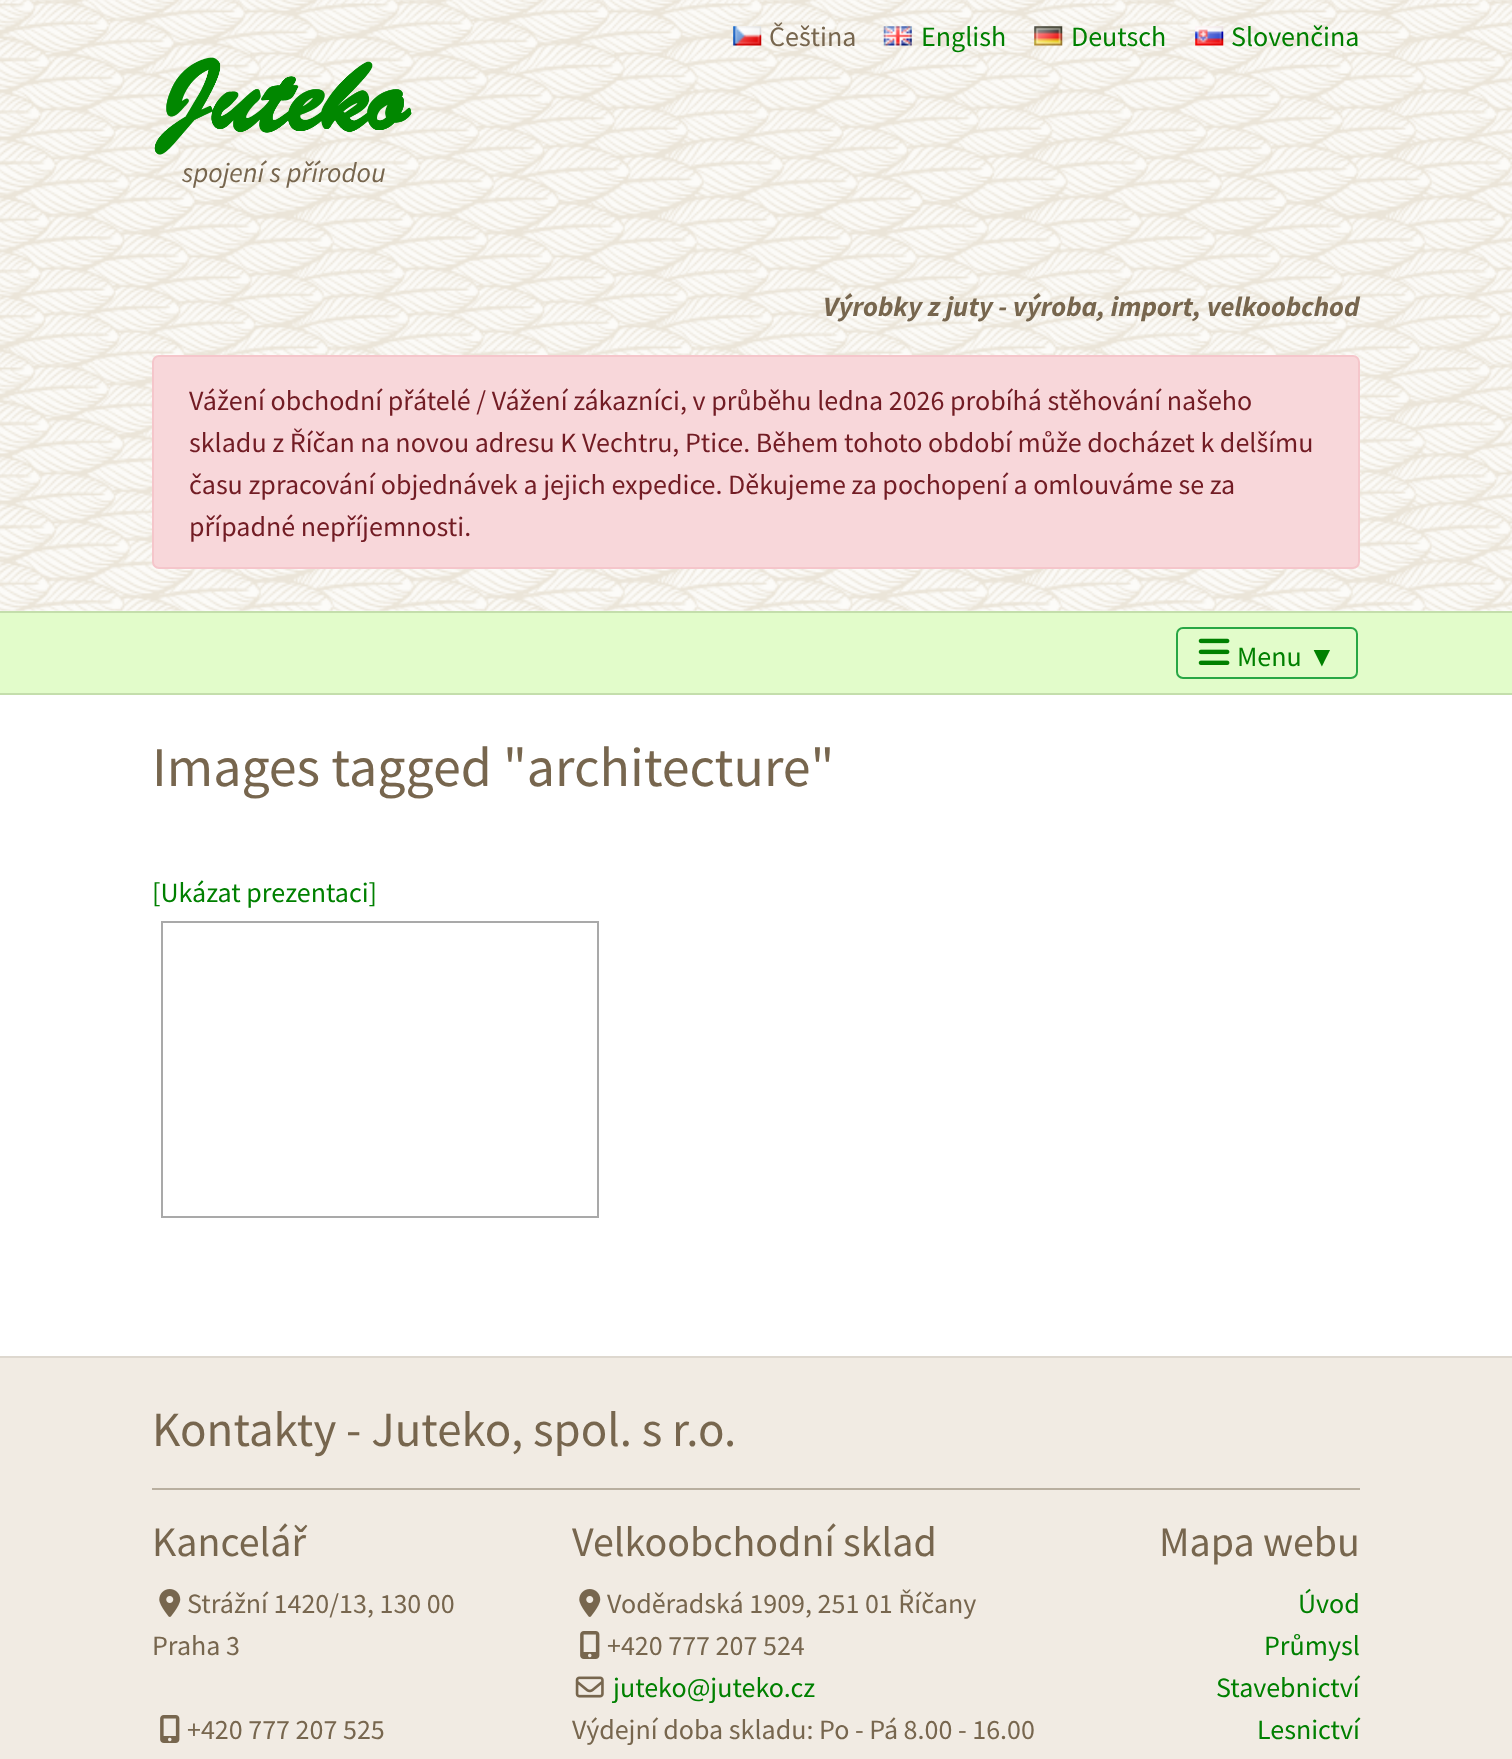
<?xml version="1.0" encoding="UTF-8"?>
<svg xmlns="http://www.w3.org/2000/svg" width="1512" height="1759">
    <rect width="100%" height="100%" fill="#FFFFFF"/>
    <image x="0" y="0" width="1512" height="611" href="img_01.png"/>
    <image x="733" y="26" width="29" height="20" href="img_02.png"/>
    <text x="769" y="46" font-family="Source Sans Pro" font-size="28" fill="#77664E">Čeština</text>
    <image x="883" y="26" width="29" height="20" href="img_03.png"/>
    <text x="921" y="46" font-family="Source Sans Pro" font-size="28" fill="#008000">English</text>
    <image x="1034" y="26" width="29" height="20" href="img_04.png"/>
    <text x="1071" y="46" font-family="Source Sans Pro" font-size="28" fill="#008000">Deutsch</text>
    <image x="1195" y="26" width="29" height="20" href="img_05.png"/>
    <text x="1231" y="46" font-family="Source Sans Pro" font-size="28" fill="#008000">Slovenčina</text>
    <image x="154" y="57" width="258" height="98" href="img_06.png"/>
    <text x="182" y="182" font-family="Source Sans Pro" font-size="28" font-style="italic" fill="#77664E">spojení s přírodou</text>
    <text x="823" y="316" font-family="Source Sans Pro" font-size="28" font-weight="700" font-style="italic" fill="#77664E">Výrobky z juty - výroba, import, velkoobchod</text>
    <rect x="153" y="356" width="1206" height="212" rx="6" fill="#F8D7DA" stroke="#F5C6CB" stroke-width="2"/>
    <text font-family="Source Sans Pro" font-size="28" fill="#721C24">
        <tspan x="189" y="410">Vážení obchodní přátelé / Vážení zákazníci, v průběhu ledna 2026 probíhá stěhování našeho</tspan>
        <tspan x="189" y="452">skladu z Říčan na novou adresu K Vechtru, Ptice. Během tohoto období může docházet k delšímu</tspan>
        <tspan x="189" y="494">času zpracování objednávek a jejich expedice. Děkujeme za pochopení a omlouváme se za</tspan>
        <tspan x="189" y="536">případné nepříjemnosti.</tspan>
    </text>
    <rect x="0" y="613" width="1512" height="80" fill="#E2FCCA"/>
    <rect x="0" y="611" width="1512" height="2" fill="#C4DEAC"/>
    <rect x="0" y="693" width="1512" height="2" fill="#C4DEAC"/>
    <rect x="1177" y="628" width="180" height="50" rx="6" fill="none" stroke="#28A745" stroke-width="2"/>
    <image x="1198" y="638" width="32" height="27" href="img_07.png"/>
    <text x="1237" y="666" font-family="Source Sans Pro" font-size="28" fill="#008000">Menu</text>
    <text x="1308" y="666" font-family="Liberation Sans" font-size="28" fill="#008000">▼</text>
    <text x="152" y="786" font-family="Source Sans Pro" font-size="56" fill="#77664E">Images tagged "architecture"</text>
    <text x="152" y="902" font-family="Source Sans Pro" font-size="28" fill="#008000">[Ukázat prezentaci]</text>
    <rect x="162" y="922" width="436" height="295" fill="none" stroke="#A9A9A9" stroke-width="2"/>
    <rect x="0" y="1358" width="1512" height="401" fill="#F1EBE3"/>
    <rect x="0" y="1356" width="1512" height="2" fill="#DED8CF"/>
    <text x="152" y="1446" font-family="Source Sans Pro" font-size="49" fill="#77664E">Kontakty - Juteko, spol. s r.o.</text>
    <rect x="152" y="1488" width="1208" height="2" fill="#B9AFA0"/>
    <text x="152" y="1556" font-family="Source Sans Pro" font-size="42" fill="#77664E">Kancelář</text>
    <image x="159" y="1589" width="22" height="28" href="img_08.png"/>
    <text x="187" y="1613" font-family="Source Sans Pro" font-size="28" fill="#77664E">Strážní 1420/13, 130 00</text>
    <text x="152" y="1655" font-family="Source Sans Pro" font-size="28" fill="#77664E">Praha 3</text>
    <image x="160" y="1715" width="20" height="28" href="img_09.png"/>
    <text x="187" y="1739" font-family="Source Sans Pro" font-size="28" fill="#77664E">+420 777 207 525</text>
    <text x="572" y="1556" font-family="Source Sans Pro" font-size="42" fill="#77664E">Velkoobchodní sklad</text>
    <image x="579" y="1589" width="22" height="28" href="img_08.png"/>
    <text x="607" y="1613" font-family="Source Sans Pro" font-size="28" fill="#77664E">Voděradská 1909, 251 01 Říčany</text>
    <image x="580" y="1631" width="20" height="28" href="img_09.png"/>
    <text x="607" y="1655" font-family="Source Sans Pro" font-size="28" fill="#77664E">+420 777 207 524</text>
    <image x="575" y="1676" width="29" height="22" href="img_10.png"/>
    <text x="613" y="1697" font-family="Source Sans Pro" font-size="28" fill="#008000">juteko@juteko.cz</text>
    <text x="572" y="1739" font-family="Source Sans Pro" font-size="28" fill="#77664E">Výdejní doba skladu: Po - Pá 8.00 - 16.00</text>
    <text x="1159" y="1556" font-family="Source Sans Pro" font-size="42" fill="#77664E">Mapa webu</text>
    <text x="1298" y="1613" font-family="Source Sans Pro" font-size="28" fill="#008000">Úvod</text>
    <text x="1264" y="1655" font-family="Source Sans Pro" font-size="28" fill="#008000">Průmysl</text>
    <text x="1216" y="1697" font-family="Source Sans Pro" font-size="28" fill="#008000">Stavebnictví</text>
    <text x="1257" y="1739" font-family="Source Sans Pro" font-size="28" fill="#008000">Lesnictví</text>
</svg>
